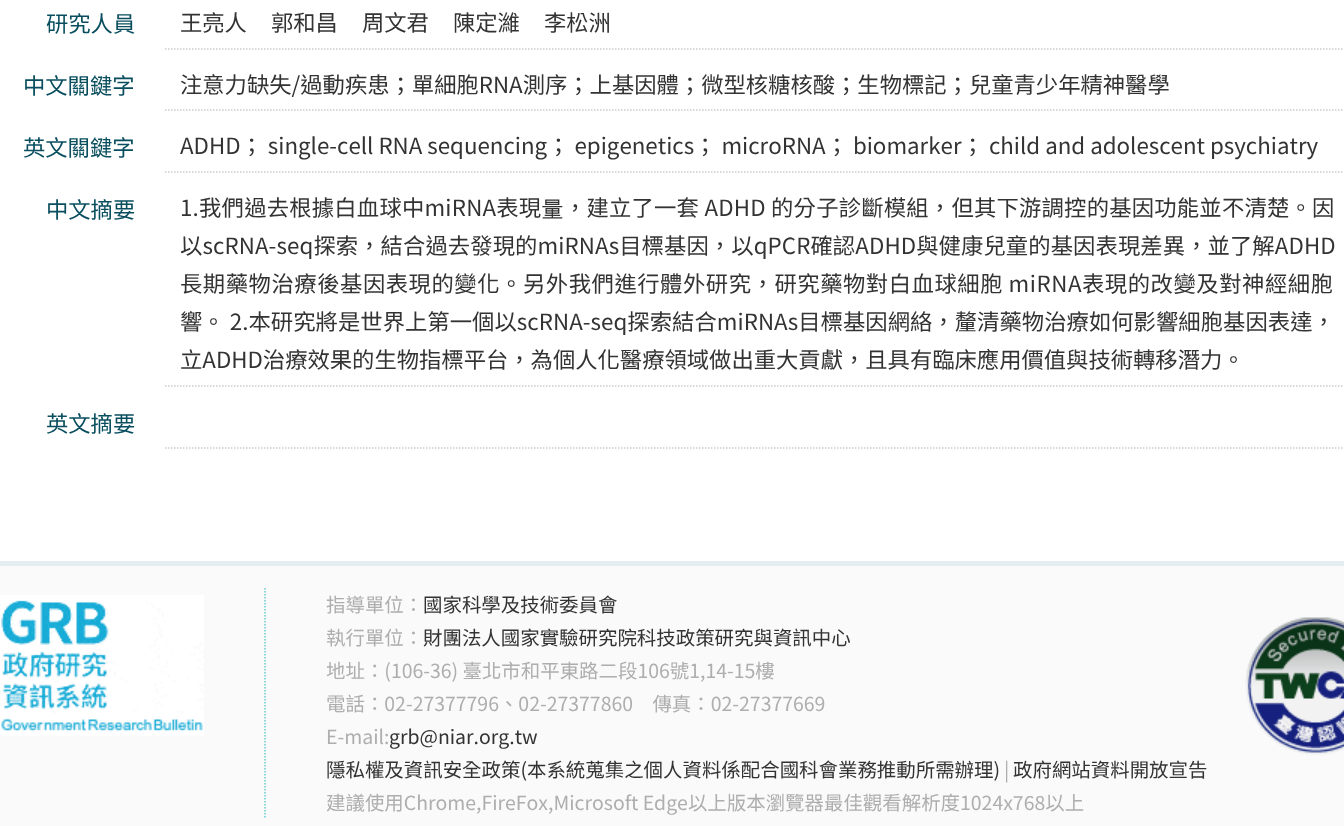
<?xml version="1.0" encoding="UTF-8"?>
<svg xmlns="http://www.w3.org/2000/svg" width="1344" height="826">
    <style>*{font-kerning:none!important;font-variant-ligatures:none!important}</style>
    <rect width="100%" height="100%" fill="#FFFFFF"/>
    <text x="46" y="32" font-family="Noto Sans TC" font-size="22.32" fill="#094E5E">研究人員</text>
    <path d="M 165 49 H 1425" fill="none" stroke="#CCCCCC" stroke-width="1.5" stroke-dasharray="1.5 1.5"/>
    <text x="180" y="31" font-family="Noto Sans TC" font-size="22.32" fill="#333333">王亮人</text>
    <text x="271" y="31" font-family="Noto Sans TC" font-size="22.32" fill="#333333">郭和昌</text>
    <text x="362" y="31" font-family="Noto Sans TC" font-size="22.32" fill="#333333">周文君</text>
    <text x="453" y="31" font-family="Noto Sans TC" font-size="22.32" fill="#333333">陳定濰</text>
    <text x="544" y="31" font-family="Noto Sans TC" font-size="22.32" fill="#333333">李松洲</text>
    <text x="23" y="94" font-family="Noto Sans TC" font-size="22.32" fill="#094E5E">中文關鍵字</text>
    <path d="M 165 110 H 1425" fill="none" stroke="#CCCCCC" stroke-width="1.5" stroke-dasharray="1.5 1.5"/>
    <text x="180" y="93" font-family="Noto Sans TC" font-size="22.32" fill="#333333">注意力缺失/過動疾患；單細胞RNA測序；上基因體；微型核糖核酸；生物標記；兒童青少年精神醫學</text>
    <text x="23" y="156" font-family="Noto Sans TC" font-size="22.32" fill="#094E5E">英文關鍵字</text>
    <path d="M 165 172 H 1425" fill="none" stroke="#CCCCCC" stroke-width="1.5" stroke-dasharray="1.5 1.5"/>
    <text x="180" y="154" font-family="Noto Sans TC" font-size="22.32" fill="#333333">ADHD； single-cell RNA sequencing； epigenetics； microRNA； biomarker； child and adolescent psychiatry</text>
    <text x="46" y="218" font-family="Noto Sans TC" font-size="22.32" fill="#094E5E">中文摘要</text>
    <path d="M 165 386 H 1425" fill="none" stroke="#CCCCCC" stroke-width="1.5" stroke-dasharray="1.5 1.5"/>
    <text x="180" y="216" font-family="Noto Sans TC" font-size="22.32" letter-spacing="0.23" fill="#333333">1.我們過去根據白血球中miRNA表現量，建立了一套 ADHD 的分子診斷模組，但其下游調控的基因功能並不清楚。因</text>
    <text x="180" y="254" font-family="Noto Sans TC" font-size="22.32" letter-spacing="0.1" fill="#333333">以scRNA-seq探索，結合過去發現的miRNAs目標基因，以qPCR確認ADHD與健康兒童的基因表現差異，並了解ADHD</text>
    <text x="180" y="292" font-family="Noto Sans TC" font-size="22.32" letter-spacing="0.55" fill="#333333">長期藥物治療後基因表現的變化。另外我們進行體外研究，研究藥物對白血球細胞 miRNA表現的改變及對神經細胞</text>
    <text x="180" y="330" font-family="Noto Sans TC" font-size="22.32" letter-spacing="0.05" fill="#333333">響。 2.本研究將是世界上第一個以scRNA-seq探索結合miRNAs目標基因網絡，釐清藥物治療如何影響細胞基因表達，</text>
    <text x="180" y="368" font-family="Noto Sans TC" font-size="22.32" fill="#333333">立ADHD治療效果的生物指標平台，為個人化醫療領域做出重大貢獻，且具有臨床應用價值與技術轉移潛力。</text>
    <text x="46" y="432" font-family="Noto Sans TC" font-size="22.32" fill="#094E5E">英文摘要</text>
    <path d="M 165 448 H 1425" fill="none" stroke="#CCCCCC" stroke-width="1.5" stroke-dasharray="1.5 1.5"/>
    <rect x="0" y="566" width="1344" height="260" fill="#FAFAFB"/>
    <rect x="0" y="561" width="1344" height="5" fill="#E4EDF0"/>
    <image x="0" y="595" width="204" height="141" href="img_01.png"/>
    <path d="M 265 588 V 819" fill="none" stroke="#66CCCC" stroke-width="1.5" stroke-dasharray="1.5 1.5"/>
    <text x="326" y="612" font-family="Noto Sans TC" font-size="19.45" fill="#AEAEAE">指導單位：</text>
    <text x="423" y="612" font-family="Noto Sans TC" font-size="19.45" fill="#333333">國家科學及技術委員會</text>
    <text x="326" y="645" font-family="Noto Sans TC" font-size="19.45" fill="#AEAEAE">執行單位：</text>
    <text x="423" y="645" font-family="Noto Sans TC" font-size="19.45" fill="#333333">財團法人國家實驗研究院科技政策研究與資訊中心</text>
    <text font-family="Noto Sans TC" font-size="19.45" fill="#AEAEAE">
        <tspan x="326" y="678">地址：(106-36) 臺北市和平東路二段106號1,14-15樓</tspan>
        <tspan x="326" y="711">電話：02-27377796、02-27377860　傳真：02-27377669</tspan>
        <tspan x="326" y="744">E-mail:</tspan>
    </text>
    <text x="389" y="744" font-family="Noto Sans TC" font-size="19.45" fill="#333333">grb@niar.org.tw</text>
    <text x="326" y="777" font-family="Noto Sans TC" font-size="19.45" fill="#333333">隱私權及資訊安全政策(本系統蒐集之個人資料係配合國科會業務推動所需辦理)</text>
    <text x="1004" y="777" font-family="Noto Sans TC" font-size="19.45" fill="#AEAEAE">|</text>
    <text x="1013" y="777" font-family="Noto Sans TC" font-size="19.45" fill="#333333">政府網站資料開放宣告</text>
    <text x="326" y="810" font-family="Noto Sans TC" font-size="19.45" fill="#AEAEAE">建議使用Chrome,FireFox,Microsoft Edge以上版本瀏覽器最佳觀看解析度1024x768以上</text>
    <image x="1245" y="617" width="99" height="138" href="img_02.png"/>
</svg>
